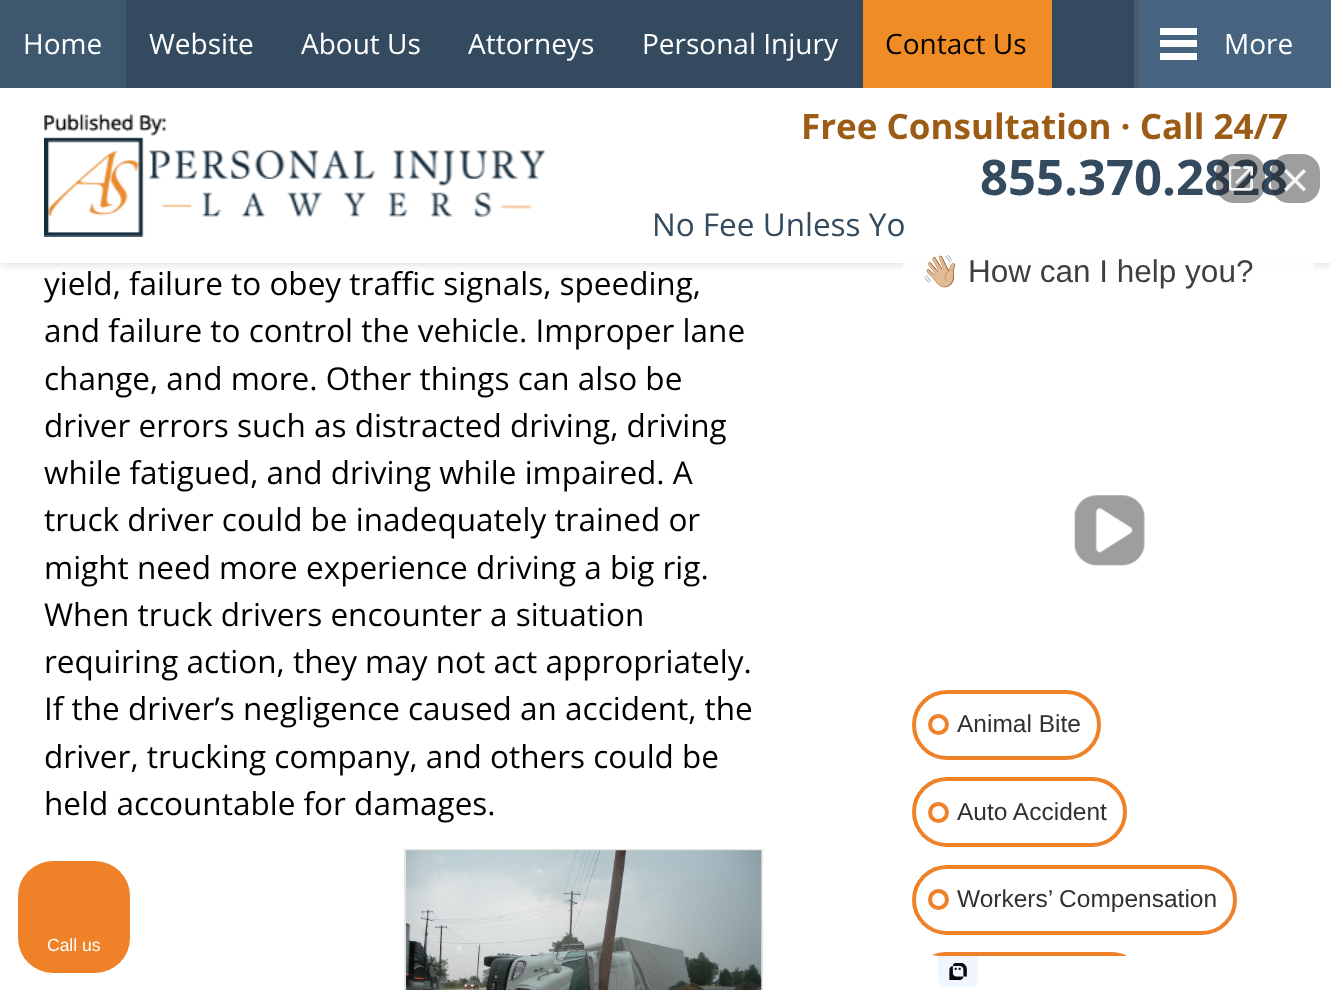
<?xml version="1.0" encoding="UTF-8"?>
<svg xmlns="http://www.w3.org/2000/svg" width="1331" height="990">
    <defs>
        <filter id="blur1" x="-50%" y="-200%" width="200%" height="500%"><feGaussianBlur stdDeviation="4.5"/></filter>
    </defs>
    <rect width="100%" height="100%" fill="#FFFFFF"/>
    <rect x="0" y="2" width="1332" height="262" fill="#000000" fill-opacity="0.15" filter="url(#blur1)"/>
    <rect x="0" y="88" width="1331" height="175" fill="#FFFFFF"/>
    <rect x="126" y="0" width="1008" height="88" fill="#344A5F"/>
    <rect x="0" y="0" width="126" height="88" fill="#3D576F"/>
    <text x="23" y="54" font-family="Open Sans" font-size="28" fill="#FFFFFF">Home</text>
    <text x="149" y="54" font-family="Open Sans" font-size="28" fill="#FFFFFF">Website</text>
    <text x="301" y="54" font-family="Open Sans" font-size="28" fill="#FFFFFF">About Us</text>
    <text x="468" y="54" font-family="Open Sans" font-size="28" fill="#FFFFFF">Attorneys</text>
    <text x="642" y="54" font-family="Open Sans" font-size="28" fill="#FFFFFF">Personal Injury</text>
    <rect x="863" y="0" width="189" height="88" fill="#EF8C25"/>
    <text x="885" y="54" font-family="Open Sans" font-size="28" fill="#000000">Contact Us</text>
    <rect x="1139" y="0" width="192" height="88" fill="#466480"/>
    <rect x="1134" y="0" width="5" height="88" fill="#485C6F"/>
    <rect x="1160" y="53" width="37" height="7" fill="#FFFFFF"/>
    <rect x="1160" y="40" width="37" height="7" fill="#FFFFFF"/>
    <rect x="1160" y="28" width="37" height="7" fill="#FFFFFF"/>
    <text x="1224" y="54" font-family="Open Sans" font-size="28" fill="#FFFFFF">More</text>
    <image x="44" y="114" width="501" height="123" href="img_01.png"/>
    <text x="801" y="139" font-family="Open Sans" font-size="35" font-weight="700" fill="#9D5C15">Free Consultation · Call 24/7</text>
    <text x="980" y="195" font-family="Open Sans" font-size="49" font-weight="700" fill="#344A5F">855.370.2828</text>
    <text x="652" y="236" font-family="Open Sans" font-size="31.5" fill="#344A5F">No Fee Unless Yo</text>
    <text font-family="Open Sans" font-size="31.5" fill="#000000">
        <tspan x="44" y="295">yield, failure to obey traffic signals, speeding,</tspan>
        <tspan x="44" y="342">and failure to control the vehicle. Improper lane</tspan>
        <tspan x="44" y="390">change, and more. Other things can also be</tspan>
        <tspan x="44" y="437">driver errors such as distracted driving, driving</tspan>
        <tspan x="44" y="484">while fatigued, and driving while impaired. A</tspan>
        <tspan x="44" y="531">truck driver could be inadequately trained or</tspan>
        <tspan x="44" y="579">might need more experience driving a big rig.</tspan>
        <tspan x="44" y="626">When truck drivers encounter a situation</tspan>
        <tspan x="44" y="673">requiring action, they may not act appropriately.</tspan>
        <tspan x="44" y="720">If the driver’s negligence caused an accident, the</tspan>
        <tspan x="44" y="768">driver, trucking company, and others could be</tspan>
        <tspan x="44" y="815">held accountable for damages.</tspan>
    </text>
    <rect x="405" y="850" width="357" height="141" fill="none" stroke="#E5E5E5" stroke-width="2"/>
    <image x="406" y="850" width="356" height="140" href="img_02.png"/>
    <rect x="903" y="226" width="411" height="730" rx="39" fill="#FFFFFF" fill-opacity="0.85"/>
    <rect x="1216" y="154" width="49" height="49" rx="18" fill="#272727" fill-opacity="0.45"/>
    <image x="1229" y="166" width="24" height="25" href="img_03.png"/>
    <rect x="1271" y="154" width="49" height="49" rx="18" fill="#272727" fill-opacity="0.45"/>
    <path d="M 1284 171.5 L 1286.5 169 L 1306 189 L 1303.5 191.5 Z" fill="#F5F5F5"/>
    <path d="M 1303.5 169 L 1306 171.5 L 1286.5 191.5 L 1284 189 Z" fill="#F5F5F5"/>
    <text x="921" y="282" font-family="Noto Color Emoji" font-size="31.5" fill="#3F3F3F">👋🏼</text>
    <text x="968" y="282" font-family="Liberation Sans" font-size="31.5" fill="#3F3F3F">How can I help you?</text>
    <image x="1074" y="495" width="71" height="71" href="img_04.png"/>
    <rect x="914" y="692" width="185" height="66" rx="33" fill="none" stroke="#EF8228" stroke-width="4"/>
    <circle cx="938.5" cy="724.5" r="8.5" fill="none" stroke="#EF8228" stroke-width="4"/>
    <text x="957" y="732" font-family="Liberation Sans" font-size="24.5" fill="#313131">Animal Bite</text>
    <rect x="914" y="779" width="211" height="66" rx="33" fill="none" stroke="#EF8228" stroke-width="4"/>
    <circle cx="938.5" cy="812.5" r="8.5" fill="none" stroke="#EF8228" stroke-width="4"/>
    <text x="957" y="820" font-family="Liberation Sans" font-size="24.5" fill="#313131">Auto Accident</text>
    <rect x="914" y="867" width="321" height="66" rx="33" fill="none" stroke="#EF8228" stroke-width="4"/>
    <circle cx="938.5" cy="899.5" r="8.5" fill="none" stroke="#EF8228" stroke-width="4"/>
    <text x="957" y="907" font-family="Liberation Sans" font-size="24.5" fill="#313131">Workers’ Compensation</text>
    <path d="M 947 952 C 942 952 936 953 932 955 L 938 956 H 1127 C 1122 953 1117 952 1111 952 Z" fill="#EF8228"/>
    <image x="938" y="956" width="40" height="31" href="img_05.png"/>
    <rect x="18" y="861" width="112" height="112" rx="35" fill="#EF8228"/>
    <text x="47" y="951" font-family="Liberation Sans" font-size="17.5" fill="#FFFFFF">Call us</text>
</svg>
